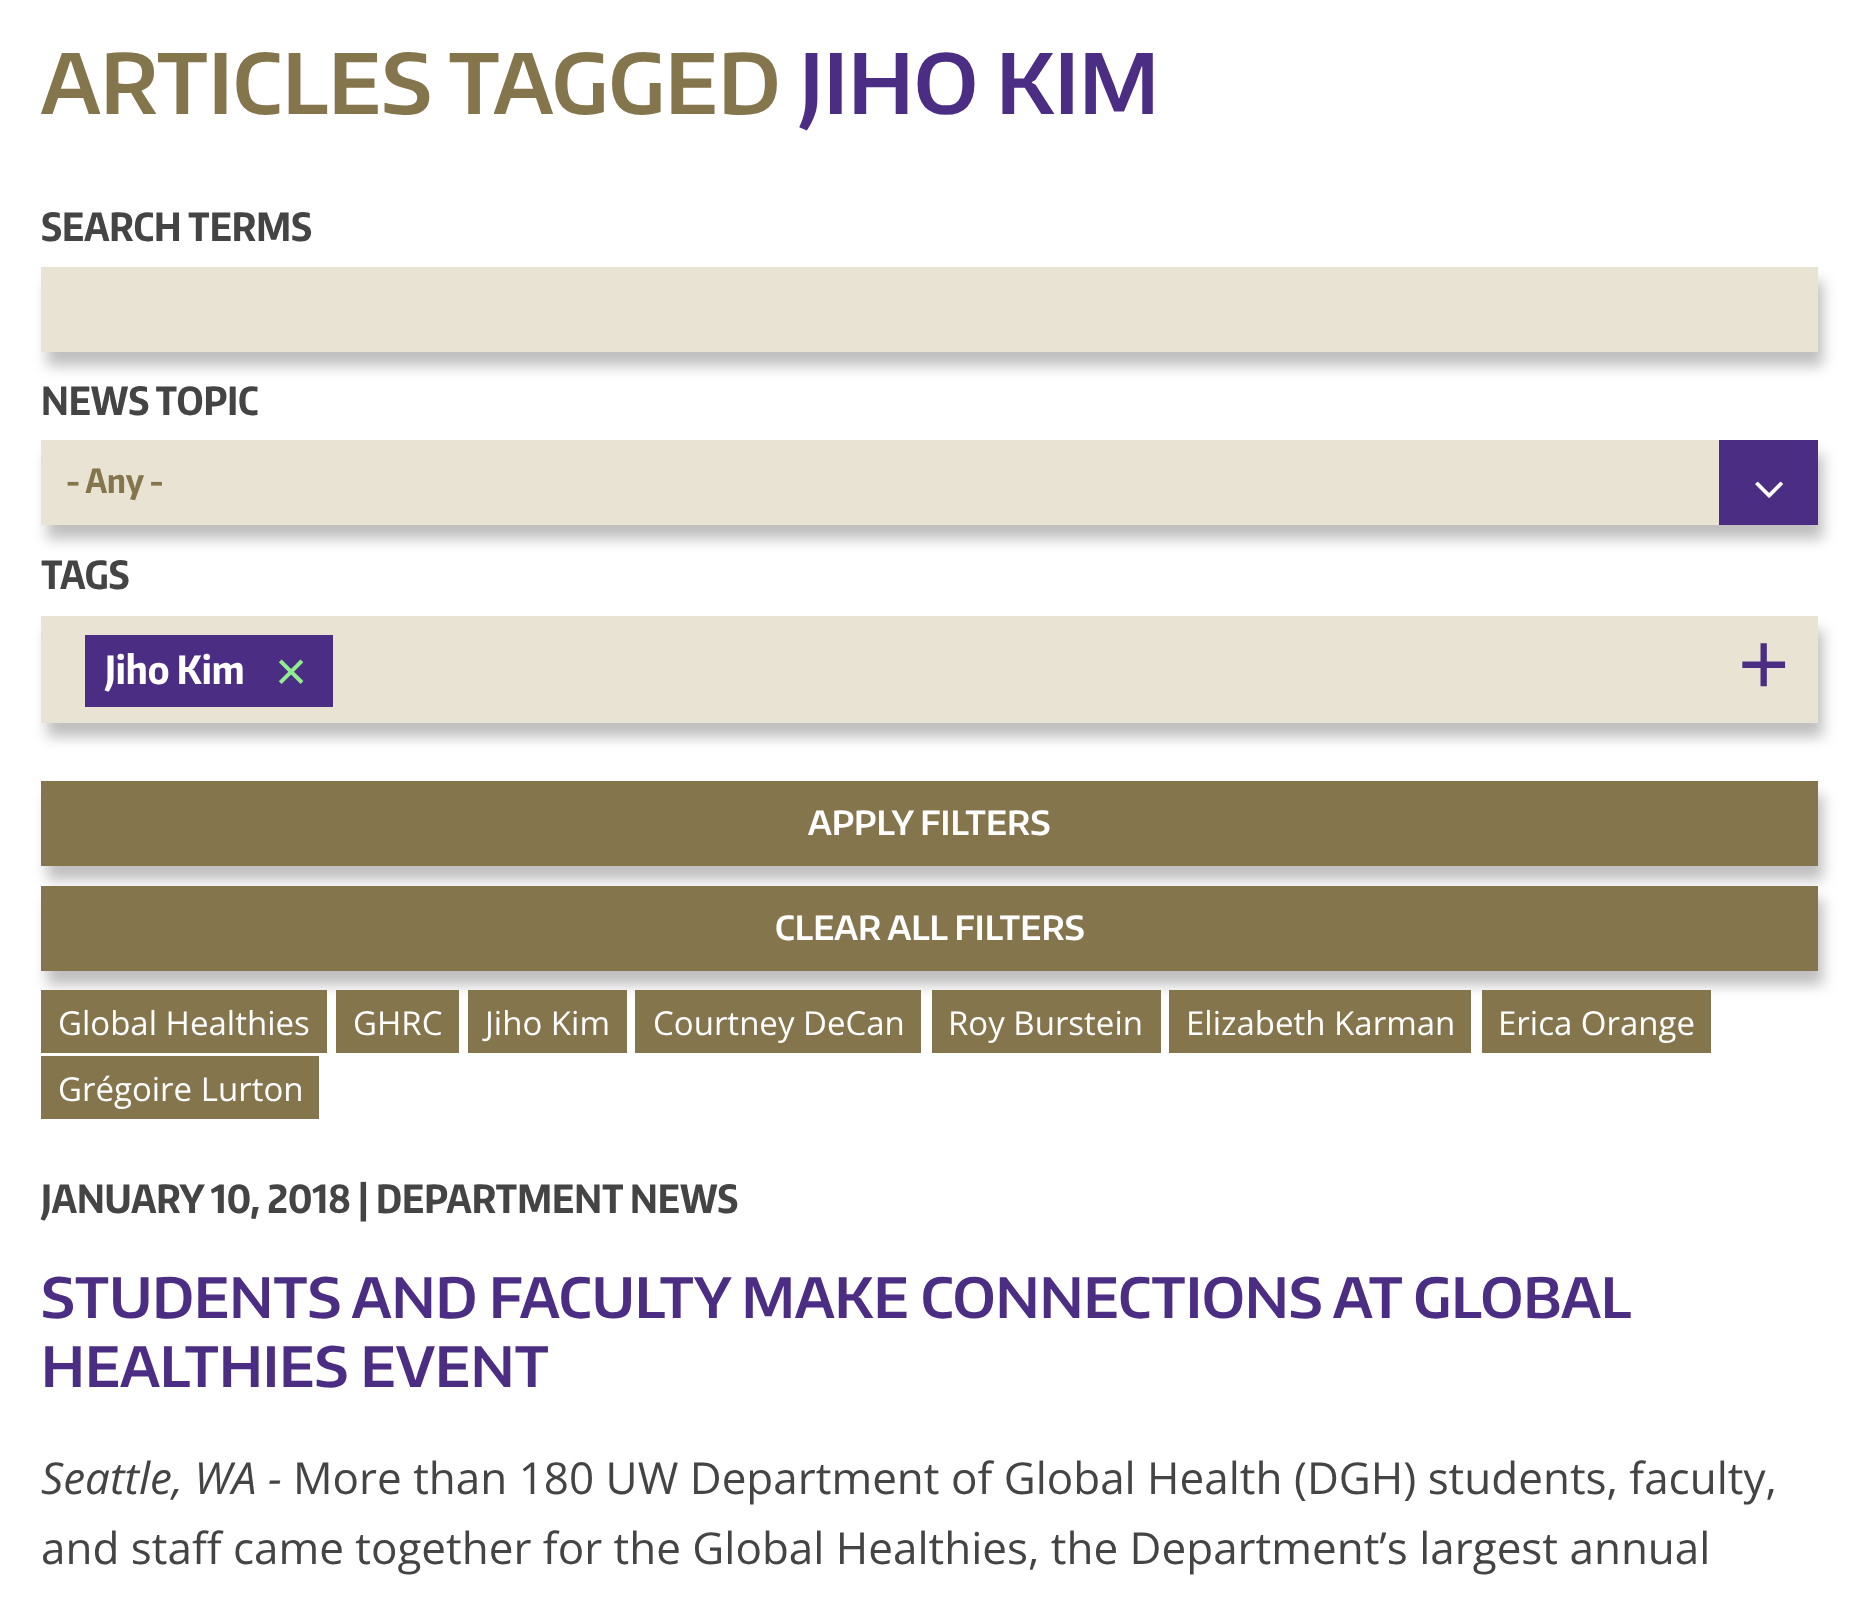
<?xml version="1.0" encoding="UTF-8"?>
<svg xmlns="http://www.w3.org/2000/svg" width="1859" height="1615">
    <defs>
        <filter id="blur1" x="-50%" y="-200%" width="200%" height="500%"><feGaussianBlur stdDeviation="7"/></filter>
    </defs>
    <rect width="100%" height="100%" fill="#FFFFFF"/>
    <text x="41" y="114" font-family="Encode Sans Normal" font-size="82.5" font-weight="600" fill="#85754D">ARTICLES TAGGED</text>
    <text x="799" y="114" font-family="Encode Sans Normal" font-size="82.5" font-weight="600" fill="#4B2E84">JIHO KIM</text>
    <text x="41" y="241" font-family="Encode Sans Condensed" font-size="38.5" font-weight="700" fill="#444444">SEARCH TERMS</text>
    <rect x="47" y="281" width="1776" height="85" fill="#000000" fill-opacity="0.25" filter="url(#blur1)"/>
    <rect x="41" y="267" width="1777" height="85" fill="#E8E3D3"/>
    <text x="41" y="415" font-family="Encode Sans Condensed" font-size="38.5" font-weight="700" fill="#444444">NEWS TOPIC</text>
    <rect x="47" y="454" width="1776" height="85" fill="#000000" fill-opacity="0.25" filter="url(#blur1)"/>
    <rect x="41" y="440" width="1678" height="85" fill="#E8E3D3"/>
    <text x="66" y="493" font-family="Encode Sans Condensed" font-size="33" font-weight="700" fill="#85754D">- Any -</text>
    <rect x="1719" y="440" width="99" height="85" fill="#4B2E84"/>
    <image x="1755" y="481" width="28" height="17" href="img_01.png"/>
    <text x="41" y="589" font-family="Encode Sans Condensed" font-size="38.5" font-weight="700" fill="#444444">TAGS</text>
    <rect x="47" y="630" width="1776" height="107" fill="#000000" fill-opacity="0.25" filter="url(#blur1)"/>
    <rect x="41" y="616" width="1777" height="107" fill="#E8E3D3"/>
    <rect x="85" y="635" width="248" height="72" fill="#4B2E84"/>
    <text x="105" y="684" font-family="Encode Sans Condensed" font-size="38.5" font-weight="700" fill="#FFFFFF">Jiho Kim</text>
    <text x="275" y="690" font-family="Liberation Sans" font-size="55" fill="#90EE90">×</text>
    <text x="1738" y="694" font-family="Liberation Sans" font-size="88" fill="#4B2E84">+</text>
    <rect x="47" y="795" width="1776" height="85" fill="#000000" fill-opacity="0.25" filter="url(#blur1)"/>
    <rect x="41" y="781" width="1777" height="85" fill="#85754D"/>
    <text x="808" y="835" font-family="Encode Sans Normal" font-size="33" font-weight="600" fill="#FFFFFF">APPLY FILTERS</text>
    <rect x="47" y="899" width="1776" height="86" fill="#000000" fill-opacity="0.25" filter="url(#blur1)"/>
    <rect x="41" y="886" width="1777" height="85" fill="#85754D"/>
    <text x="775" y="940" font-family="Encode Sans Normal" font-size="33" font-weight="600" fill="#FFFFFF">CLEAR ALL FILTERS</text>
    <rect x="41" y="990" width="286" height="63" fill="#85754D"/>
    <text x="58" y="1035" font-family="Open Sans" font-size="33" fill="#FFFFFF">Global Healthies</text>
    <rect x="336" y="990" width="123" height="63" fill="#85754D"/>
    <text x="353" y="1035" font-family="Open Sans" font-size="33" fill="#FFFFFF">GHRC</text>
    <rect x="468" y="990" width="159" height="63" fill="#85754D"/>
    <text x="485" y="1035" font-family="Open Sans" font-size="33" fill="#FFFFFF">Jiho Kim</text>
    <rect x="635" y="990" width="286" height="63" fill="#85754D"/>
    <text x="653" y="1035" font-family="Open Sans" font-size="33" fill="#FFFFFF">Courtney DeCan</text>
    <rect x="932" y="990" width="229" height="63" fill="#85754D"/>
    <text x="948" y="1035" font-family="Open Sans" font-size="33" fill="#FFFFFF">Roy Burstein</text>
    <rect x="1169" y="990" width="302" height="63" fill="#85754D"/>
    <text x="1186" y="1035" font-family="Open Sans" font-size="33" fill="#FFFFFF">Elizabeth Karman</text>
    <rect x="1482" y="990" width="229" height="63" fill="#85754D"/>
    <text x="1498" y="1035" font-family="Open Sans" font-size="33" fill="#FFFFFF">Erica Orange</text>
    <rect x="41" y="1056" width="278" height="63" fill="#85754D"/>
    <text x="58" y="1101" font-family="Open Sans" font-size="33" fill="#FFFFFF">Grégoire Lurton</text>
    <text x="41" y="1213" font-family="Encode Sans Condensed" font-size="38.5" font-weight="700" fill="#444444">JANUARY 10, 2018 | DEPARTMENT NEWS</text>
    <text font-family="Encode Sans Normal" font-size="55" font-weight="600" fill="#4B2E84">
        <tspan x="41" y="1318" word-spacing="-0.25">STUDENTS AND FACULTY MAKE CONNECTIONS AT GLOBAL</tspan>
        <tspan x="41" y="1387">HEALTHIES EVENT</tspan>
    </text>
    <text x="41" y="1494" font-family="Open Sans" font-size="44" font-style="italic" fill="#444444">Seattle, WA -</text>
    <text x="293" y="1494" font-family="Open Sans" font-size="44" fill="#444444">More than 180 UW Department of Global Health (DGH) students, faculty,</text>
    <text x="41" y="1564" font-family="Open Sans" font-size="44" fill="#444444">and staff came together for the Global Healthies, the Department’s largest annual</text>
</svg>
